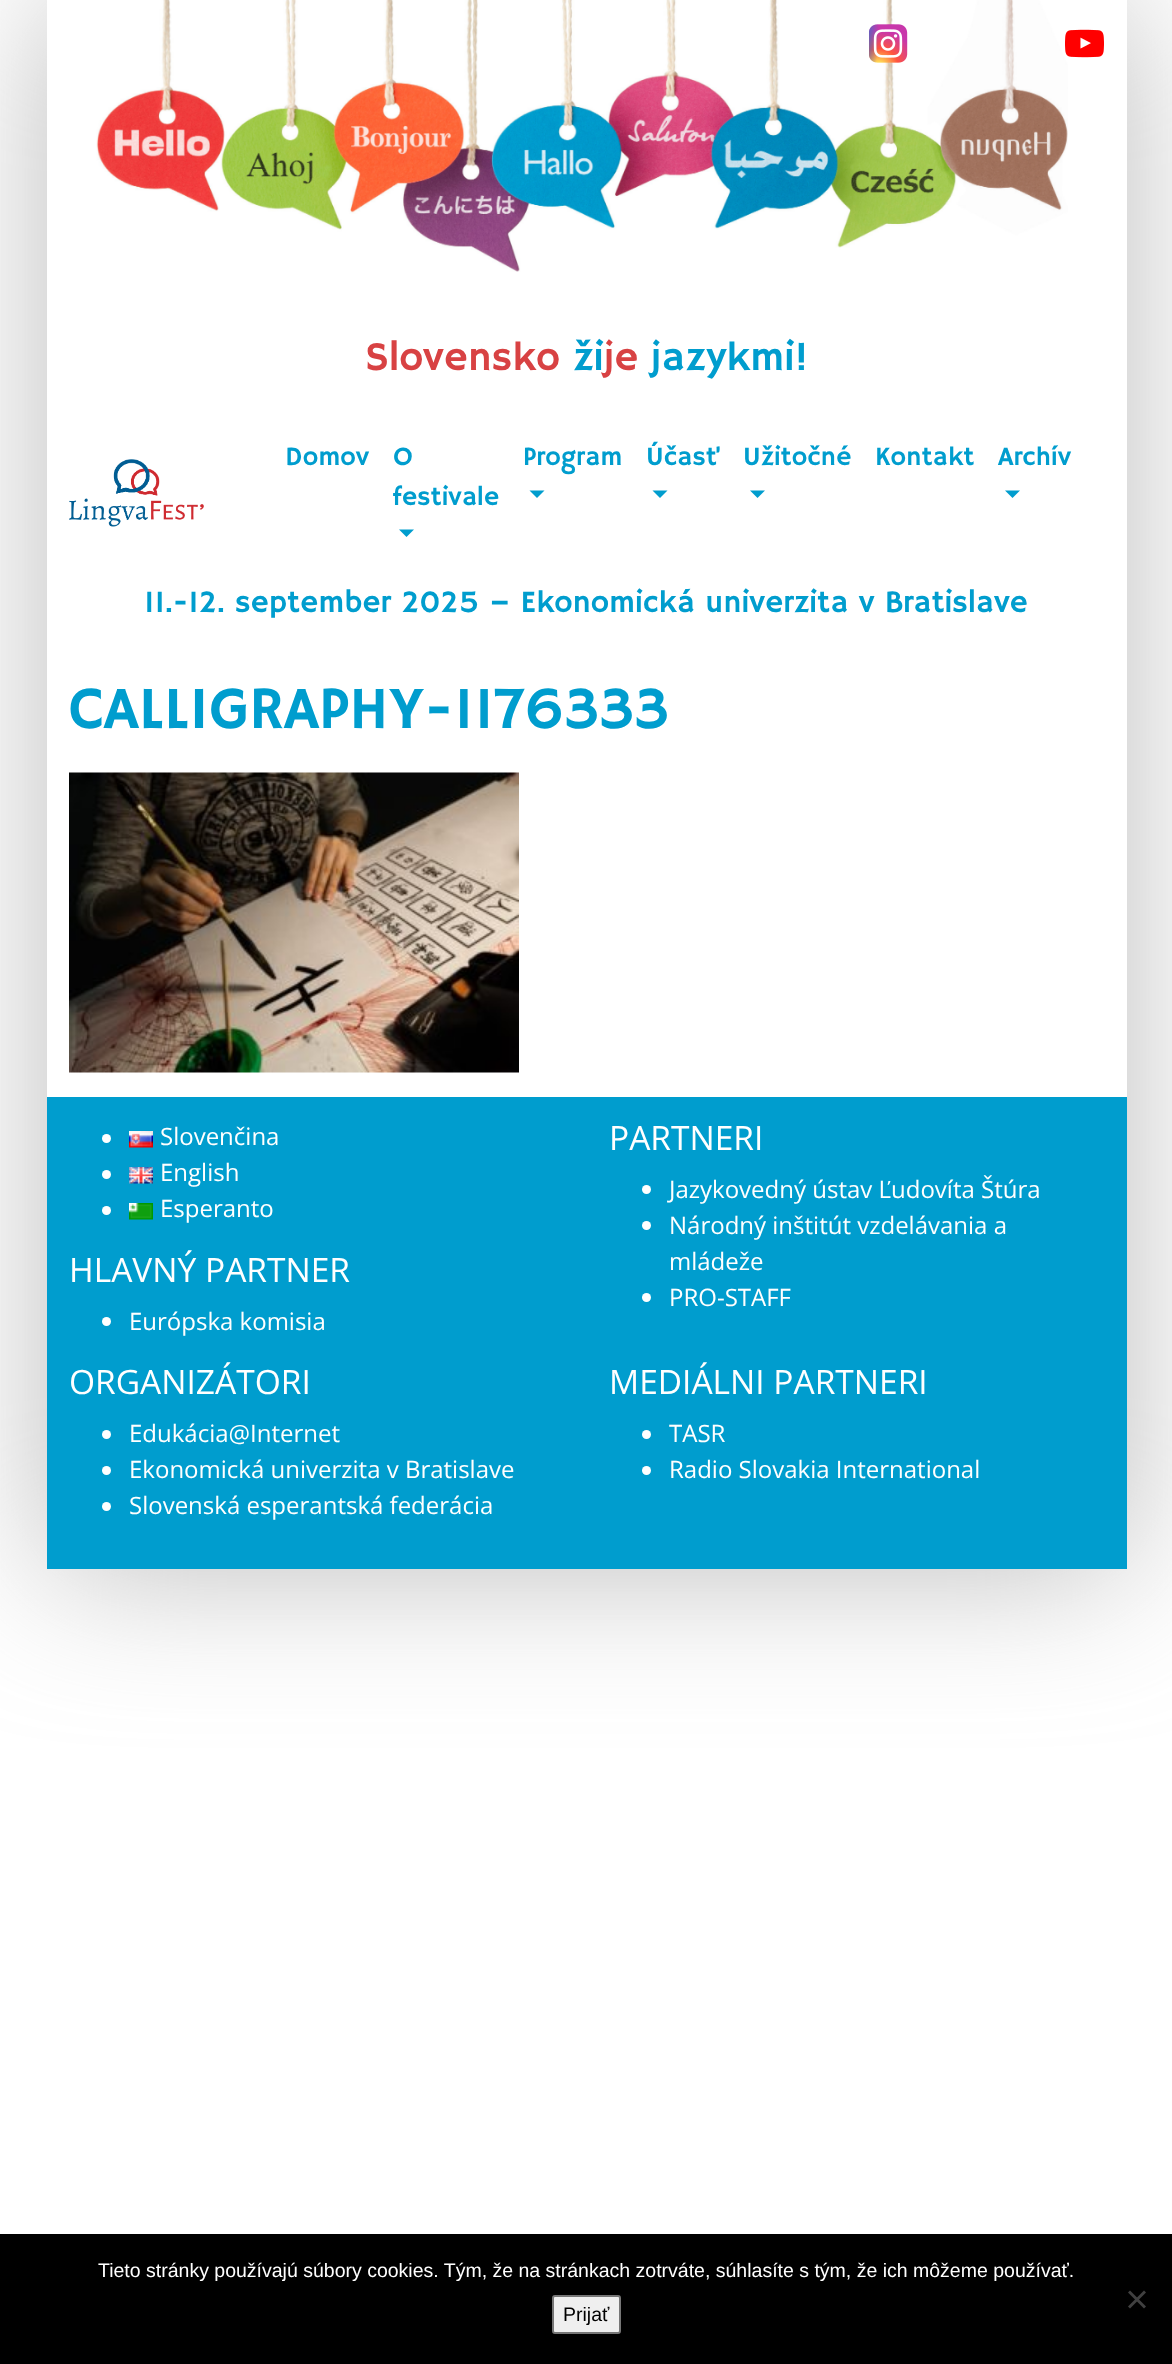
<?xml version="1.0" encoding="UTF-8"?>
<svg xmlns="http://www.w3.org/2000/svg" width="1172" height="2364">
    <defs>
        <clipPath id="clip1"><path d="M 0 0 H 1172 V 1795 H 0 Z M 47 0 H 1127 V 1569 H 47 Z" clip-rule="evenodd"/></clipPath>
        <filter id="blur1" x="-50%" y="-200%" width="200%" height="500%"><feGaussianBlur stdDeviation="75"/></filter>
    </defs>
    <rect width="100%" height="100%" fill="#FFFFFF"/>
    <g clip-path="url(#clip1)">
        <rect x="47" y="0" width="1080" height="1569" fill="#BBBBBB" filter="url(#blur1)"/>
    </g>
    <image x="96" y="0" width="972" height="272" href="img_01.png"/>
    <image x="869" y="24" width="39" height="39" href="img_02.png"/>
    <image x="1065" y="29" width="39" height="29" href="img_03.png"/>
    <text x="365" y="370" font-family="Hammersmith One" font-size="41" fill="#D84243">Slovensko</text>
    <text x="573" y="370" font-family="Hammersmith One" font-size="41" fill="#009DCE">ži</text>
    <text x="604" y="370" font-family="Hammersmith One" font-size="41" fill="#D84243">je</text>
    <text x="651" y="370" font-family="Hammersmith One" font-size="41" fill="#009DCE">jazykmi!</text>
    <image x="69" y="459" width="135" height="68" href="img_04.png"/>
    <text x="285" y="465" font-family="Hammersmith One" font-size="26.5" fill="#009DCE">Domov</text>
    <text font-family="Hammersmith One" font-size="26.5" fill="#009DCE">
        <tspan x="393" y="465">O</tspan>
        <tspan x="393" y="505">festivale</tspan>
    </text>
    <path d="M 399 529.5 H 414 L 406.5 537 Z" fill="#009DCE"/>
    <text x="523" y="465" font-family="Hammersmith One" font-size="26.5" fill="#009DCE">Program</text>
    <path d="M 529.5 490.5 H 544.5 L 537 498 Z" fill="#009DCE"/>
    <text x="646" y="465" font-family="Hammersmith One" font-size="26.5" fill="#009DCE">Účasť</text>
    <path d="M 652.5 490.5 H 667.5 L 660 498 Z" fill="#009DCE"/>
    <text x="743" y="465" font-family="Hammersmith One" font-size="26.5" fill="#009DCE">Užitočné</text>
    <path d="M 750 490.5 H 765 L 757.5 498 Z" fill="#009DCE"/>
    <text x="875" y="465" font-family="Hammersmith One" font-size="26.5" fill="#009DCE">Kontakt</text>
    <text x="998" y="465" font-family="Hammersmith One" font-size="26.5" fill="#009DCE">Archív</text>
    <path d="M 1005 490.5 H 1020 L 1012.5 498 Z" fill="#009DCE"/>
    <text x="144" y="612" font-family="Hammersmith One" font-size="31.2" fill="#009DCE">11.-12. september 2025 – Ekonomická univerzita v Bratislave</text>
    <text x="69" y="728" font-family="Hammersmith One" font-size="60" fill="#009DCE">CALLIGRAPHY-1176333</text>
    <image x="69" y="772" width="450" height="301" href="img_05.png"/>
    <rect x="47" y="1097" width="1080" height="472" fill="#009DCE"/>
    <circle cx="106.5" cy="1138.5" r="4.5" fill="#FFFFFF"/>
    <image x="129" y="1131" width="24" height="17" href="img_06.png"/>
    <text x="160" y="1145" font-family="Open Sans" font-size="24" fill="#FFFFFF">Slovenčina</text>
    <circle cx="106.5" cy="1174.5" r="4.5" fill="#FFFFFF"/>
    <image x="129" y="1167" width="24" height="17" href="img_07.png"/>
    <text x="160" y="1181" font-family="Open Sans" font-size="24" fill="#FFFFFF">English</text>
    <circle cx="106.5" cy="1210.5" r="4.5" fill="#FFFFFF"/>
    <image x="129" y="1203" width="24" height="17" href="img_08.png"/>
    <text x="160" y="1217" font-family="Open Sans" font-size="24" fill="#FFFFFF">Esperanto</text>
    <text x="69" y="1282" font-family="Open Sans" font-size="33.5" fill="#FFFFFF">HLAVNÝ PARTNER</text>
    <circle cx="106.5" cy="1321.5" r="4.5" fill="#FFFFFF"/>
    <text x="129" y="1330" font-family="Open Sans" font-size="24" fill="#FFFFFF">Európska komisia</text>
    <text x="609" y="1150" font-family="Open Sans" font-size="33.5" fill="#FFFFFF">PARTNERI</text>
    <circle cx="646.5" cy="1189.5" r="4.5" fill="#FFFFFF"/>
    <text x="669" y="1198" font-family="Open Sans" font-size="24" fill="#FFFFFF">Jazykovedný ústav Ľudovíta Štúra</text>
    <circle cx="646.5" cy="1225.5" r="4.5" fill="#FFFFFF"/>
    <text font-family="Open Sans" font-size="24" fill="#FFFFFF">
        <tspan x="669" y="1234">Národný inštitút vzdelávania a</tspan>
        <tspan x="669" y="1270">mládeže</tspan>
    </text>
    <circle cx="646.5" cy="1297.5" r="4.5" fill="#FFFFFF"/>
    <text x="669" y="1306" font-family="Open Sans" font-size="24" fill="#FFFFFF">PRO-STAFF</text>
    <text x="69" y="1394" font-family="Open Sans" font-size="33.5" fill="#FFFFFF">ORGANIZÁTORI</text>
    <circle cx="106.5" cy="1434.5" r="4.5" fill="#FFFFFF"/>
    <text x="129" y="1442" font-family="Open Sans" font-size="24" fill="#FFFFFF">Edukácia@Internet</text>
    <circle cx="106.5" cy="1470.5" r="4.5" fill="#FFFFFF"/>
    <text x="129" y="1478" font-family="Open Sans" font-size="24" fill="#FFFFFF">Ekonomická univerzita v Bratislave</text>
    <circle cx="106.5" cy="1506.5" r="4.5" fill="#FFFFFF"/>
    <text x="129" y="1514" font-family="Open Sans" font-size="24" fill="#FFFFFF">Slovenská esperantská federácia</text>
    <text x="609" y="1394" font-family="Open Sans" font-size="33.5" fill="#FFFFFF">MEDIÁLNI PARTNERI</text>
    <circle cx="646.5" cy="1434.5" r="4.5" fill="#FFFFFF"/>
    <text x="669" y="1442" font-family="Open Sans" font-size="24" fill="#FFFFFF">TASR</text>
    <circle cx="646.5" cy="1470.5" r="4.5" fill="#FFFFFF"/>
    <text x="669" y="1478" font-family="Open Sans" font-size="24" fill="#FFFFFF">Radio Slovakia International</text>
    <rect x="0" y="2234" width="1172" height="130" fill="#000000"/>
    <text x="98" y="2277" font-family="Liberation Sans" font-size="19.5" fill="#FFFFFF">Tieto stránky používajú súbory cookies. Tým, že na stránkach zotrváte, súhlasíte s tým, že ich môžeme používať.</text>
    <path d="M 1144 2290.5 L 1146 2292.5 L 1130 2308.5 L 1128 2306.5 Z" fill="#404040"/>
    <path d="M 1128 2292.5 L 1130 2290.5 L 1146 2306.5 L 1144 2308.5 Z" fill="#404040"/>
    <rect x="553" y="2296" width="67" height="37" rx="2" fill="#EFEFEF" stroke="#767676" stroke-width="2"/>
    <text x="563" y="2321" font-family="Liberation Sans" font-size="19.5" fill="#000000">Prijať</text>
</svg>
